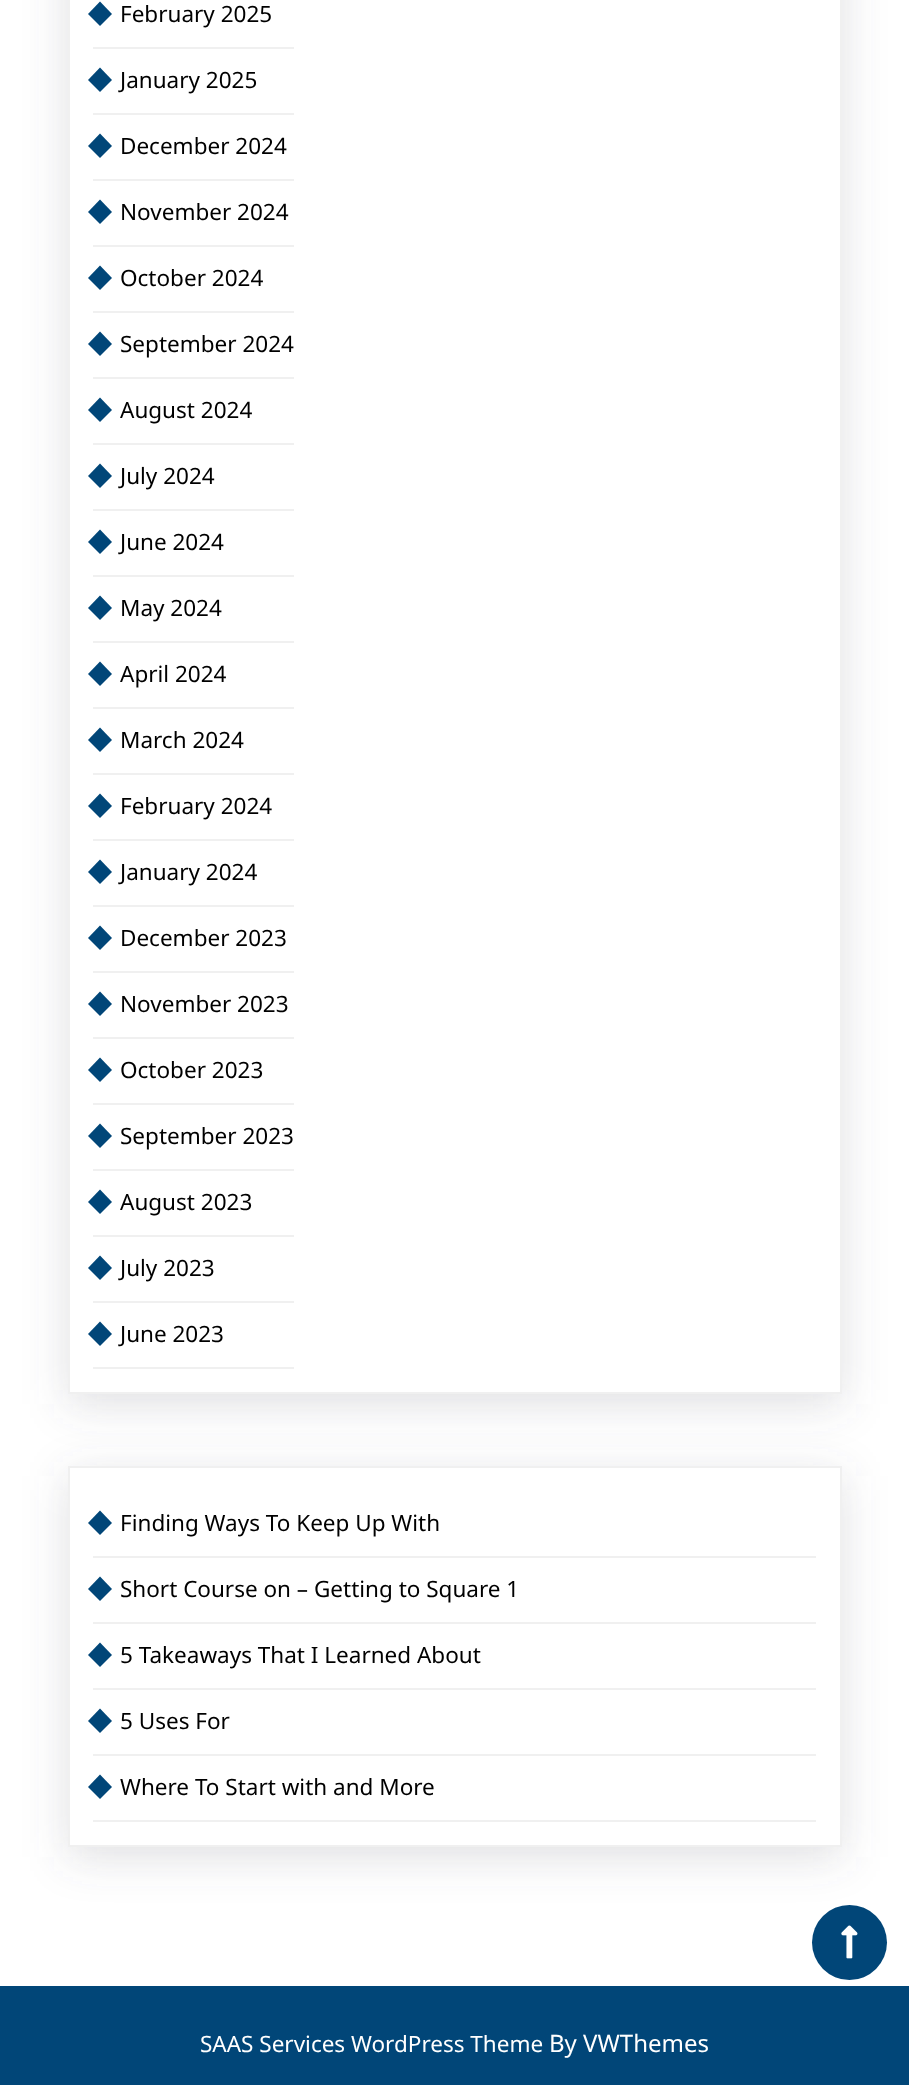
<?xml version="1.0" encoding="UTF-8"?>
<svg xmlns="http://www.w3.org/2000/svg" width="909" height="2085">
    <defs>
        <filter id="blur1" x="-50%" y="-200%" width="200%" height="500%"><feGaussianBlur stdDeviation="22"/></filter>
    </defs>
    <rect width="100%" height="100%" fill="#FFFFFF"/>
    <rect x="68" y="-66" width="774" height="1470" fill="#64646F" fill-opacity="0.2" filter="url(#blur1)"/>
    <rect x="69" y="-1" width="772" height="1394" fill="#FFFFFF" stroke="#F0F0F0" stroke-width="2"/>
    <rect x="93" y="47" width="201" height="2" fill="#F0F0F0"/>
    <path d="M 88 14 L 100 1.5 L 112 14 L 100 26 Z" fill="#014678"/>
    <text x="120" y="22" font-family="Noto Sans" font-size="22.5" fill="#000000">February 2025</text>
    <rect x="93" y="113" width="201" height="2" fill="#F0F0F0"/>
    <path d="M 88 80 L 100 67.5 L 112 80 L 100 92 Z" fill="#014678"/>
    <text x="120" y="88" font-family="Noto Sans" font-size="22.5" fill="#000000">January 2025</text>
    <rect x="93" y="179" width="201" height="2" fill="#F0F0F0"/>
    <path d="M 88 146 L 100 133.5 L 112 146 L 100 158 Z" fill="#014678"/>
    <text x="120" y="154" font-family="Noto Sans" font-size="22.5" fill="#000000">December 2024</text>
    <rect x="93" y="245" width="201" height="2" fill="#F0F0F0"/>
    <path d="M 88 212 L 100 199.5 L 112 212 L 100 224 Z" fill="#014678"/>
    <text x="120" y="220" font-family="Noto Sans" font-size="22.5" fill="#000000">November 2024</text>
    <rect x="93" y="311" width="201" height="2" fill="#F0F0F0"/>
    <path d="M 88 278 L 100 265.5 L 112 278 L 100 290 Z" fill="#014678"/>
    <text x="120" y="286" font-family="Noto Sans" font-size="22.5" fill="#000000">October 2024</text>
    <rect x="93" y="377" width="201" height="2" fill="#F0F0F0"/>
    <path d="M 88 344 L 100 331.5 L 112 344 L 100 356 Z" fill="#014678"/>
    <text x="120" y="352" font-family="Noto Sans" font-size="22.5" fill="#000000">September 2024</text>
    <rect x="93" y="443" width="201" height="2" fill="#F0F0F0"/>
    <path d="M 88 410 L 100 397.5 L 112 410 L 100 422 Z" fill="#014678"/>
    <text x="120" y="418" font-family="Noto Sans" font-size="22.5" fill="#000000">August 2024</text>
    <rect x="93" y="509" width="201" height="2" fill="#F0F0F0"/>
    <path d="M 88 476 L 100 463.5 L 112 476 L 100 488 Z" fill="#014678"/>
    <text x="120" y="484" font-family="Noto Sans" font-size="22.5" fill="#000000">July 2024</text>
    <rect x="93" y="575" width="201" height="2" fill="#F0F0F0"/>
    <path d="M 88 542 L 100 529.5 L 112 542 L 100 554 Z" fill="#014678"/>
    <text x="120" y="550" font-family="Noto Sans" font-size="22.5" fill="#000000">June 2024</text>
    <rect x="93" y="641" width="201" height="2" fill="#F0F0F0"/>
    <path d="M 88 608 L 100 595.5 L 112 608 L 100 620 Z" fill="#014678"/>
    <text x="120" y="616" font-family="Noto Sans" font-size="22.5" fill="#000000">May 2024</text>
    <rect x="93" y="707" width="201" height="2" fill="#F0F0F0"/>
    <path d="M 88 674 L 100 661.5 L 112 674 L 100 686 Z" fill="#014678"/>
    <text x="120" y="682" font-family="Noto Sans" font-size="22.5" fill="#000000">April 2024</text>
    <rect x="93" y="773" width="201" height="2" fill="#F0F0F0"/>
    <path d="M 88 740 L 100 727.5 L 112 740 L 100 752 Z" fill="#014678"/>
    <text x="120" y="748" font-family="Noto Sans" font-size="22.5" fill="#000000">March 2024</text>
    <rect x="93" y="839" width="201" height="2" fill="#F0F0F0"/>
    <path d="M 88 806 L 100 793.5 L 112 806 L 100 818 Z" fill="#014678"/>
    <text x="120" y="814" font-family="Noto Sans" font-size="22.5" fill="#000000">February 2024</text>
    <rect x="93" y="905" width="201" height="2" fill="#F0F0F0"/>
    <path d="M 88 872 L 100 859.5 L 112 872 L 100 884 Z" fill="#014678"/>
    <text x="120" y="880" font-family="Noto Sans" font-size="22.5" fill="#000000">January 2024</text>
    <rect x="93" y="971" width="201" height="2" fill="#F0F0F0"/>
    <path d="M 88 938 L 100 925.5 L 112 938 L 100 950 Z" fill="#014678"/>
    <text x="120" y="946" font-family="Noto Sans" font-size="22.5" fill="#000000">December 2023</text>
    <rect x="93" y="1037" width="201" height="2" fill="#F0F0F0"/>
    <path d="M 88 1004 L 100 991.5 L 112 1004 L 100 1016 Z" fill="#014678"/>
    <text x="120" y="1012" font-family="Noto Sans" font-size="22.5" fill="#000000">November 2023</text>
    <rect x="93" y="1103" width="201" height="2" fill="#F0F0F0"/>
    <path d="M 88 1070 L 100 1057.5 L 112 1070 L 100 1082 Z" fill="#014678"/>
    <text x="120" y="1078" font-family="Noto Sans" font-size="22.5" fill="#000000">October 2023</text>
    <rect x="93" y="1169" width="201" height="2" fill="#F0F0F0"/>
    <path d="M 88 1136 L 100 1123.5 L 112 1136 L 100 1148 Z" fill="#014678"/>
    <text x="120" y="1144" font-family="Noto Sans" font-size="22.5" fill="#000000">September 2023</text>
    <rect x="93" y="1235" width="201" height="2" fill="#F0F0F0"/>
    <path d="M 88 1202 L 100 1189.5 L 112 1202 L 100 1214 Z" fill="#014678"/>
    <text x="120" y="1210" font-family="Noto Sans" font-size="22.5" fill="#000000">August 2023</text>
    <rect x="93" y="1301" width="201" height="2" fill="#F0F0F0"/>
    <path d="M 88 1268 L 100 1255.5 L 112 1268 L 100 1280 Z" fill="#014678"/>
    <text x="120" y="1276" font-family="Noto Sans" font-size="22.5" fill="#000000">July 2023</text>
    <rect x="93" y="1367" width="201" height="2" fill="#F0F0F0"/>
    <path d="M 88 1334 L 100 1321.5 L 112 1334 L 100 1346 Z" fill="#014678"/>
    <text x="120" y="1342" font-family="Noto Sans" font-size="22.5" fill="#000000">June 2023</text>
    <rect x="68" y="1476" width="774" height="381" fill="#64646F" fill-opacity="0.2" filter="url(#blur1)"/>
    <rect x="69" y="1467" width="772" height="379" fill="#FFFFFF" stroke="#F0F0F0" stroke-width="2"/>
    <rect x="93" y="1556" width="723" height="2" fill="#F0F0F0"/>
    <path d="M 88 1523 L 100 1510.5 L 112 1523 L 100 1535 Z" fill="#014678"/>
    <text x="120" y="1531" font-family="Noto Sans" font-size="22.5" fill="#000000">Finding Ways To Keep Up With</text>
    <rect x="93" y="1622" width="723" height="2" fill="#F0F0F0"/>
    <path d="M 88 1589 L 100 1576.5 L 112 1589 L 100 1601 Z" fill="#014678"/>
    <text x="120" y="1597" font-family="Noto Sans" font-size="22.5" fill="#000000">Short Course on – Getting to Square 1</text>
    <rect x="93" y="1688" width="723" height="2" fill="#F0F0F0"/>
    <path d="M 88 1655 L 100 1642.5 L 112 1655 L 100 1667 Z" fill="#014678"/>
    <text x="120" y="1663" font-family="Noto Sans" font-size="22.5" fill="#000000">5 Takeaways That I Learned About</text>
    <rect x="93" y="1754" width="723" height="2" fill="#F0F0F0"/>
    <path d="M 88 1721 L 100 1708.5 L 112 1721 L 100 1733 Z" fill="#014678"/>
    <text x="120" y="1729" font-family="Noto Sans" font-size="22.5" fill="#000000">5 Uses For</text>
    <rect x="93" y="1820" width="723" height="2" fill="#F0F0F0"/>
    <path d="M 88 1787 L 100 1774.5 L 112 1787 L 100 1799 Z" fill="#014678"/>
    <text x="120" y="1795" font-family="Noto Sans" font-size="22.5" fill="#000000">Where To Start with and More</text>
    <rect x="0" y="1986" width="909" height="99" fill="#014678"/>
    <circle cx="849.5" cy="1942.5" r="37.5" fill="#014678"/>
    <image x="841" y="1925" width="17" height="34" href="img_01.png"/>
    <text x="200" y="2052" font-family="Noto Sans" font-size="22.5" fill="#FFFFFF">SAAS Services WordPress Theme</text>
    <text x="549" y="2052" font-family="Noto Sans" font-size="24" fill="#FFFFFF">By VWThemes</text>
</svg>
